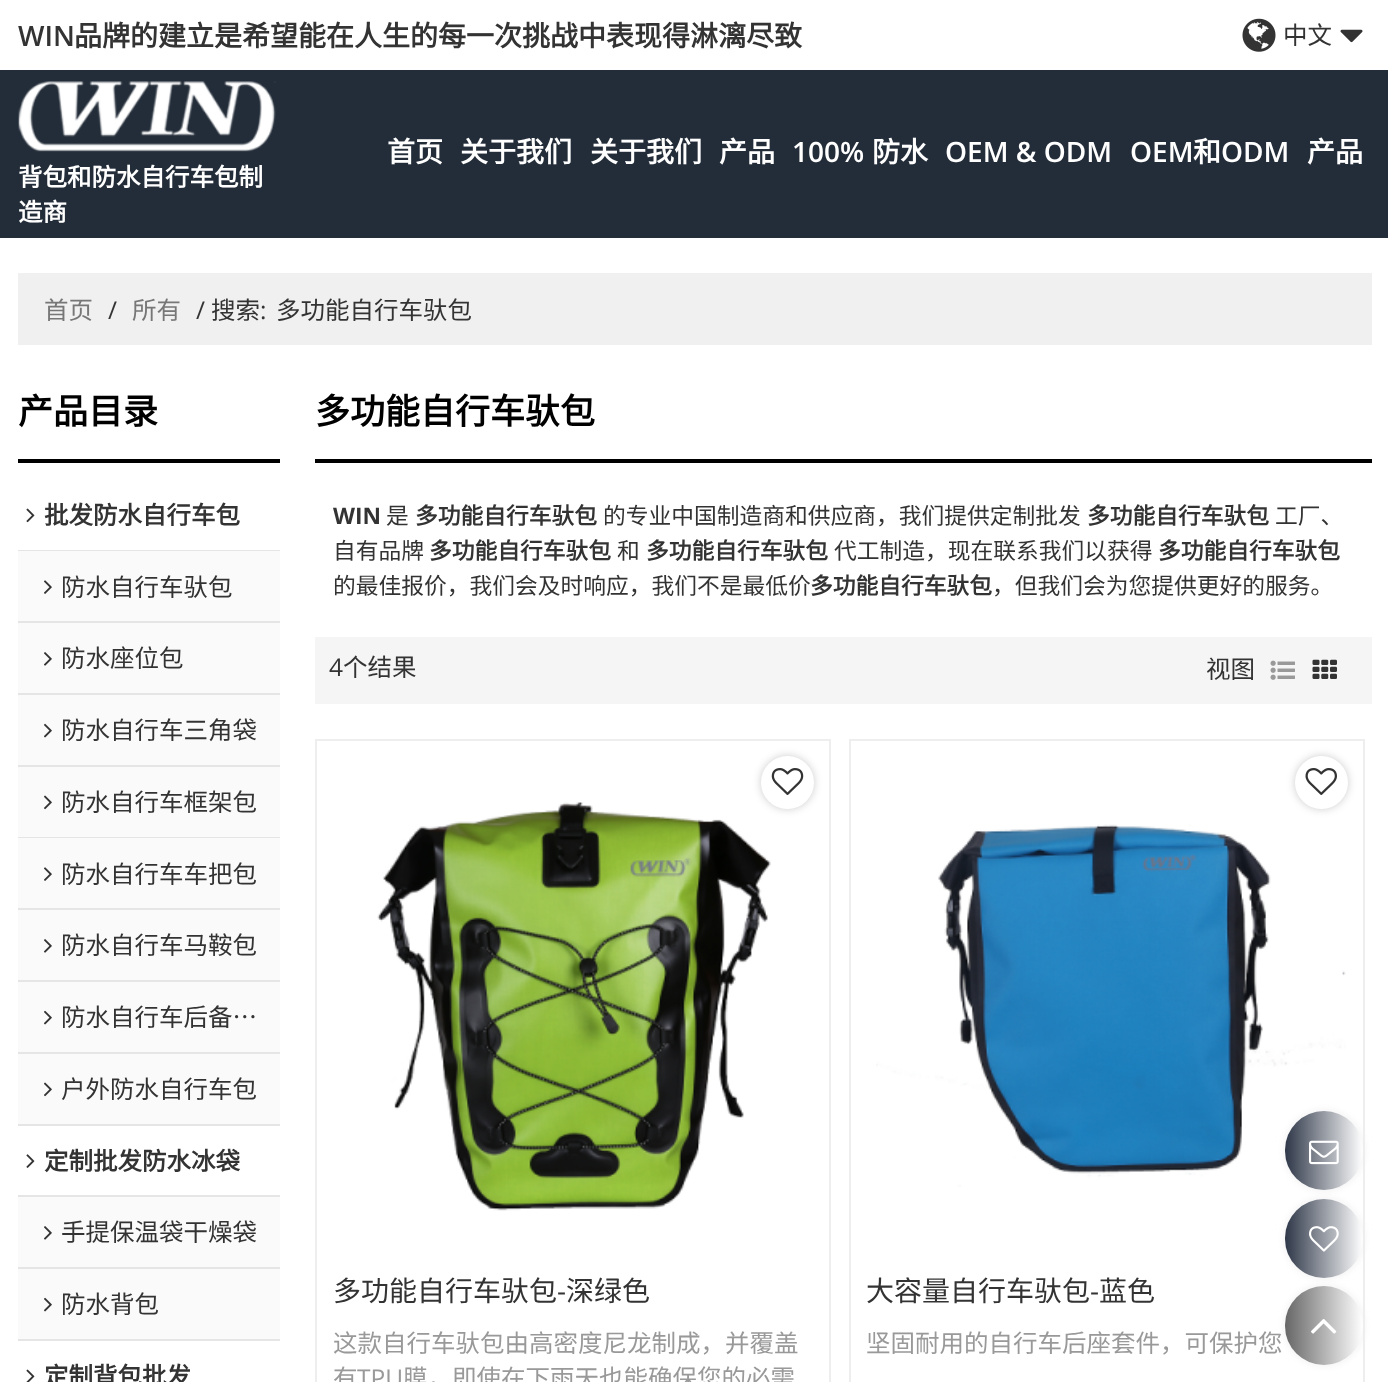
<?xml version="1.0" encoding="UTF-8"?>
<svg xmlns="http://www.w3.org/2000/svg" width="1388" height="1382">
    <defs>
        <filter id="blur1" x="-50%" y="-200%" width="200%" height="500%"><feGaussianBlur stdDeviation="4.5"/></filter>
        <linearGradient id="g1" gradientUnits="userSpaceOnUse" x1="1285" y1="1151" x2="1363" y2="1151"><stop offset="0" stop-color="#2E3748"/><stop offset="1" stop-color="#FFFFFF"/></linearGradient>
        <linearGradient id="g2" gradientUnits="userSpaceOnUse" x1="1285" y1="1238" x2="1363" y2="1238"><stop offset="0" stop-color="#2E3748"/><stop offset="1" stop-color="#FFFFFF"/></linearGradient>
        <linearGradient id="g3" gradientUnits="userSpaceOnUse" x1="1285" y1="1326" x2="1363" y2="1326"><stop offset="0" stop-color="#666666"/><stop offset="1" stop-color="#FFFFFF"/></linearGradient>
    </defs>
    <rect width="100%" height="100%" fill="#FFFFFF"/>
    <text x="18" y="46" font-family="Open Sans" font-size="28" font-weight="600" fill="#333333">WIN</text>
    <text x="74" y="46" font-family="Noto Sans CJK SC" font-size="28" font-weight="700" fill="#333333">品牌的建立是希望能在人生的每一次挑战中表现得淋漓尽致</text>
    <image x="1242" y="18" width="34" height="34" href="img_01.png"/>
    <text x="1283" y="44" font-family="Noto Sans CJK SC" font-size="24.5" fill="#333333">中文</text>
    <image x="1340" y="29" width="23" height="14" href="img_02.png"/>
    <rect x="0" y="70" width="1388" height="168" fill="#232D39"/>
    <text x="387" y="162" font-family="Noto Sans CJK SC" font-size="28" font-weight="700" fill="#FFFFFF">首页</text>
    <text x="460" y="162" font-family="Noto Sans CJK SC" font-size="28" font-weight="700" fill="#FFFFFF">关于我们</text>
    <text x="590" y="162" font-family="Noto Sans CJK SC" font-size="28" font-weight="700" fill="#FFFFFF">关于我们</text>
    <text x="719" y="162" font-family="Noto Sans CJK SC" font-size="28" font-weight="700" fill="#FFFFFF">产品</text>
    <text x="792" y="162" font-family="Open Sans" font-size="28" font-weight="600" fill="#FFFFFF">100%</text>
    <text x="872" y="162" font-family="Noto Sans CJK SC" font-size="28" font-weight="700" fill="#FFFFFF">防水</text>
    <text x="945" y="162" font-family="Open Sans" font-size="28" font-weight="600" fill="#FFFFFF">OEM &amp; ODM</text>
    <text x="1130" y="162" font-family="Open Sans" font-size="28" font-weight="600" fill="#FFFFFF">OEM</text>
    <text x="1193" y="162" font-family="Noto Sans CJK SC" font-size="28" font-weight="700" fill="#FFFFFF">和</text>
    <text x="1221" y="162" font-family="Open Sans" font-size="28" font-weight="600" fill="#FFFFFF">ODM</text>
    <text x="1307" y="162" font-family="Noto Sans CJK SC" font-size="28" font-weight="700" fill="#FFFFFF">产品</text>
    <image x="18" y="81" width="258" height="71" href="img_03.png"/>
    <text font-family="Noto Sans CJK SC" font-size="24.5" font-weight="700" fill="#FFFFFF">
        <tspan x="18" y="186">背包和防水自行车包制</tspan>
        <tspan x="18" y="221">造商</tspan>
    </text>
    <rect x="18" y="273" width="1354" height="72" fill="#F0F0F0"/>
    <text x="44" y="319" font-family="Noto Sans CJK SC" font-size="24.5" fill="#777777">首页</text>
    <text x="108" y="319" font-family="Open Sans" font-size="24.5" fill="#333333">/</text>
    <text x="132" y="319" font-family="Noto Sans CJK SC" font-size="24.5" fill="#777777">所有</text>
    <text x="196" y="319" font-family="Open Sans" font-size="24.5" fill="#333333">/</text>
    <text x="211" y="319" font-family="Noto Sans CJK SC" font-size="24.5" fill="#333333">搜索</text>
    <text x="260" y="319" font-family="Open Sans" font-size="24.5" fill="#333333">:</text>
    <text x="276" y="319" font-family="Noto Sans CJK SC" font-size="24.5" fill="#333333">多功能自行车驮包</text>
    <rect x="18" y="459" width="262" height="4" fill="#000000"/>
    <text x="18" y="424" font-family="Noto Sans CJK SC" font-size="35" font-weight="700" fill="#000000">产品目录</text>
    <rect x="18" y="550" width="262" height="1" fill="#E5E5E5"/>
    <image x="26" y="508" width="9" height="15" href="img_04.png"/>
    <text x="44" y="524" font-family="Noto Sans CJK SC" font-size="24.5" font-weight="700" fill="#333333">批发防水自行车包</text>
    <rect x="18" y="551" width="262" height="70" fill="#FAFAFA"/>
    <rect x="18" y="621" width="262" height="2" fill="#E5E5E5"/>
    <image x="44" y="580" width="8" height="14" href="img_05.png"/>
    <text x="61" y="596" font-family="Noto Sans CJK SC" font-size="24.5" fill="#333333">防水自行车驮包</text>
    <rect x="18" y="623" width="262" height="70" fill="#FAFAFA"/>
    <rect x="18" y="693" width="262" height="2" fill="#E5E5E5"/>
    <image x="44" y="652" width="8" height="14" href="img_06.png"/>
    <text x="61" y="667" font-family="Noto Sans CJK SC" font-size="24.5" fill="#333333">防水座位包</text>
    <rect x="18" y="695" width="262" height="70" fill="#FAFAFA"/>
    <rect x="18" y="765" width="262" height="2" fill="#E5E5E5"/>
    <image x="44" y="723" width="8" height="15" href="img_07.png"/>
    <text x="61" y="739" font-family="Noto Sans CJK SC" font-size="24.5" fill="#333333">防水自行车三角袋</text>
    <rect x="18" y="767" width="262" height="70" fill="#FAFAFA"/>
    <rect x="18" y="837" width="262" height="1" fill="#E5E5E5"/>
    <image x="44" y="795" width="8" height="15" href="img_08.png"/>
    <text x="61" y="811" font-family="Noto Sans CJK SC" font-size="24.5" fill="#333333">防水自行车框架包</text>
    <rect x="18" y="838" width="262" height="70" fill="#FAFAFA"/>
    <rect x="18" y="908" width="262" height="2" fill="#E5E5E5"/>
    <image x="44" y="867" width="8" height="14" href="img_05.png"/>
    <text x="61" y="883" font-family="Noto Sans CJK SC" font-size="24.5" fill="#333333">防水自行车车把包</text>
    <rect x="18" y="910" width="262" height="70" fill="#FAFAFA"/>
    <rect x="18" y="980" width="262" height="2" fill="#E5E5E5"/>
    <image x="44" y="939" width="8" height="14" href="img_06.png"/>
    <text x="61" y="954" font-family="Noto Sans CJK SC" font-size="24.5" fill="#333333">防水自行车马鞍包</text>
    <rect x="18" y="982" width="262" height="70" fill="#FAFAFA"/>
    <rect x="18" y="1052" width="262" height="2" fill="#E5E5E5"/>
    <image x="44" y="1010" width="8" height="15" href="img_07.png"/>
    <text x="61" y="1026" font-family="Noto Sans CJK SC" font-size="24.5" fill="#333333">防水自行车后备…</text>
    <rect x="18" y="1054" width="262" height="70" fill="#FAFAFA"/>
    <rect x="18" y="1124" width="262" height="2" fill="#E5E5E5"/>
    <image x="44" y="1082" width="8" height="15" href="img_08.png"/>
    <text x="61" y="1098" font-family="Noto Sans CJK SC" font-size="24.5" fill="#333333">户外防水自行车包</text>
    <rect x="18" y="1195" width="262" height="2" fill="#E5E5E5"/>
    <image x="26" y="1154" width="9" height="14" href="img_09.png"/>
    <text x="44" y="1170" font-family="Noto Sans CJK SC" font-size="24.5" font-weight="700" fill="#333333">定制批发防水冰袋</text>
    <rect x="18" y="1197" width="262" height="70" fill="#FAFAFA"/>
    <rect x="18" y="1267" width="262" height="2" fill="#E5E5E5"/>
    <image x="44" y="1226" width="8" height="14" href="img_06.png"/>
    <text x="61" y="1241" font-family="Noto Sans CJK SC" font-size="24.5" fill="#333333">手提保温袋干燥袋</text>
    <rect x="18" y="1269" width="262" height="70" fill="#FAFAFA"/>
    <rect x="18" y="1339" width="262" height="2" fill="#E5E5E5"/>
    <image x="44" y="1297" width="8" height="15" href="img_07.png"/>
    <text x="61" y="1313" font-family="Noto Sans CJK SC" font-size="24.5" fill="#333333">防水背包</text>
    <image x="26" y="1369" width="9" height="13" href="img_10.png"/>
    <text x="44" y="1385" font-family="Noto Sans CJK SC" font-size="24.5" font-weight="700" fill="#333333">定制背包批发</text>
    <rect x="315" y="459" width="1057" height="4" fill="#000000"/>
    <text x="315" y="424" font-family="Noto Sans CJK SC" font-size="35" font-weight="700" fill="#000000">多功能自行车驮包</text>
    <text x="333" y="524" font-family="Open Sans" font-size="22.75" font-weight="700" fill="#333333">WIN</text>
    <text x="386" y="524" font-family="Noto Sans CJK SC" font-size="22.75" fill="#333333">是</text>
    <text x="415" y="524" font-family="Noto Sans CJK SC" font-size="22.75" font-weight="700" fill="#333333">多功能自行车驮包</text>
    <text x="603" y="524" font-family="Noto Sans CJK SC" font-size="22.75" fill="#333333">的专业中国制造商和供应商，我们提供定制批发</text>
    <text x="1087" y="524" font-family="Noto Sans CJK SC" font-size="22.75" font-weight="700" fill="#333333">多功能自行车驮包</text>
    <text x="1275" y="524" font-family="Noto Sans CJK SC" font-size="22.75" fill="#333333">工厂、</text>
    <text x="333" y="559" font-family="Noto Sans CJK SC" font-size="22.75" fill="#333333">自有品牌</text>
    <text x="429" y="559" font-family="Noto Sans CJK SC" font-size="22.75" font-weight="700" fill="#333333">多功能自行车驮包</text>
    <text x="617" y="559" font-family="Noto Sans CJK SC" font-size="22.75" fill="#333333">和</text>
    <text x="646" y="559" font-family="Noto Sans CJK SC" font-size="22.75" font-weight="700" fill="#333333">多功能自行车驮包</text>
    <text x="834" y="559" font-family="Noto Sans CJK SC" font-size="22.75" fill="#333333">代工制造，现在联系我们以获得</text>
    <text x="1158" y="559" font-family="Noto Sans CJK SC" font-size="22.75" font-weight="700" fill="#333333">多功能自行车驮包</text>
    <text x="333" y="594" font-family="Noto Sans CJK SC" font-size="22.75" fill="#333333">的最佳报价，我们会及时响应，我们不是最低价</text>
    <text x="810" y="594" font-family="Noto Sans CJK SC" font-size="22.75" font-weight="700" fill="#333333">多功能自行车驮包</text>
    <text x="992" y="594" font-family="Noto Sans CJK SC" font-size="22.75" fill="#333333">，但我们会为您提供更好的服务。</text>
    <rect x="315" y="637" width="1057" height="67" fill="#F5F5F5"/>
    <text x="329" y="676" font-family="Open Sans" font-size="24.5" fill="#333333">4</text>
    <text x="343" y="676" font-family="Noto Sans CJK SC" font-size="24.5" fill="#333333">个结果</text>
    <text x="1206" y="678" font-family="Noto Sans CJK SC" font-size="24.5" fill="#333333">视图</text>
    <image x="1270" y="660" width="25" height="20" href="img_11.png"/>
    <image x="1312" y="659" width="25" height="20" href="img_12.png"/>
    <rect x="316" y="740" width="514" height="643" fill="none" stroke="#EEEEEE" stroke-width="2"/>
    <image x="377" y="802" width="394" height="409" href="img_14.png"/>
    <rect x="761" y="756" width="53" height="53" rx="26.5" fill="#000000" fill-opacity="0.2" filter="url(#blur1)"/>
    <circle cx="787.5" cy="782.5" r="26.5" fill="#FFFFFF"/>
    <image x="771" y="768" width="33" height="27" href="img_13.png"/>
    <text x="333" y="1301" font-family="Noto Sans CJK SC" font-size="28" fill="#333333">多功能自行车驮包</text>
    <text x="557" y="1301" font-family="Open Sans" font-size="28" fill="#333333">-</text>
    <text x="566" y="1301" font-family="Noto Sans CJK SC" font-size="28" fill="#333333">深绿色</text>
    <text font-family="Noto Sans CJK SC" font-size="24.5" fill="#999999">
        <tspan x="333" y="1352">这款自行车驮包由高密度尼龙制成，并覆盖</tspan>
        <tspan x="333" y="1387">有</tspan>
    </text>
    <text x="357" y="1387" font-family="Open Sans" font-size="24.5" fill="#999999">TPU</text>
    <text x="403" y="1387" font-family="Noto Sans CJK SC" font-size="24.5" fill="#999999">膜，即使在下雨天也能确保您的必需</text>
    <rect x="850" y="740" width="514" height="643" fill="none" stroke="#EEEEEE" stroke-width="2"/>
    <rect x="1295" y="756" width="53" height="53" rx="26.5" fill="#000000" fill-opacity="0.2" filter="url(#blur1)"/>
    <circle cx="1321.5" cy="782.5" r="26.5" fill="#FFFFFF"/>
    <image x="1305" y="768" width="32" height="27" href="img_15.png"/>
    <image x="876" y="824" width="470" height="363" href="img_16.png"/>
    <text x="866" y="1301" font-family="Noto Sans CJK SC" font-size="28" fill="#333333">大容量自行车驮包</text>
    <text x="1090" y="1301" font-family="Open Sans" font-size="28" fill="#333333">-</text>
    <text x="1099" y="1301" font-family="Noto Sans CJK SC" font-size="28" fill="#333333">蓝色</text>
    <text x="866" y="1352" font-family="Noto Sans CJK SC" font-size="24.5" fill="#999999">坚固耐用的自行车后座套件，可保护您</text>
    <rect x="1285" y="1111" width="78" height="79" rx="39" fill="#EEEEEE" filter="url(#blur1)"/>
    <rect x="1285" y="1111" width="78" height="79" rx="39" fill="url(#g1)"/>
    <image x="1309" y="1140" width="30" height="25" href="img_17.png"/>
    <rect x="1285" y="1199" width="78" height="79" rx="39" fill="#EEEEEE" filter="url(#blur1)"/>
    <rect x="1285" y="1199" width="78" height="79" rx="39" fill="url(#g2)"/>
    <image x="1309" y="1226" width="30" height="26" href="img_18.png"/>
    <rect x="1285" y="1286" width="78" height="79" rx="39" fill="#EEEEEE" filter="url(#blur1)"/>
    <rect x="1285" y="1286" width="78" height="79" rx="39" fill="url(#g3)"/>
    <image x="1311" y="1319" width="26" height="15" href="img_19.png"/>
</svg>
